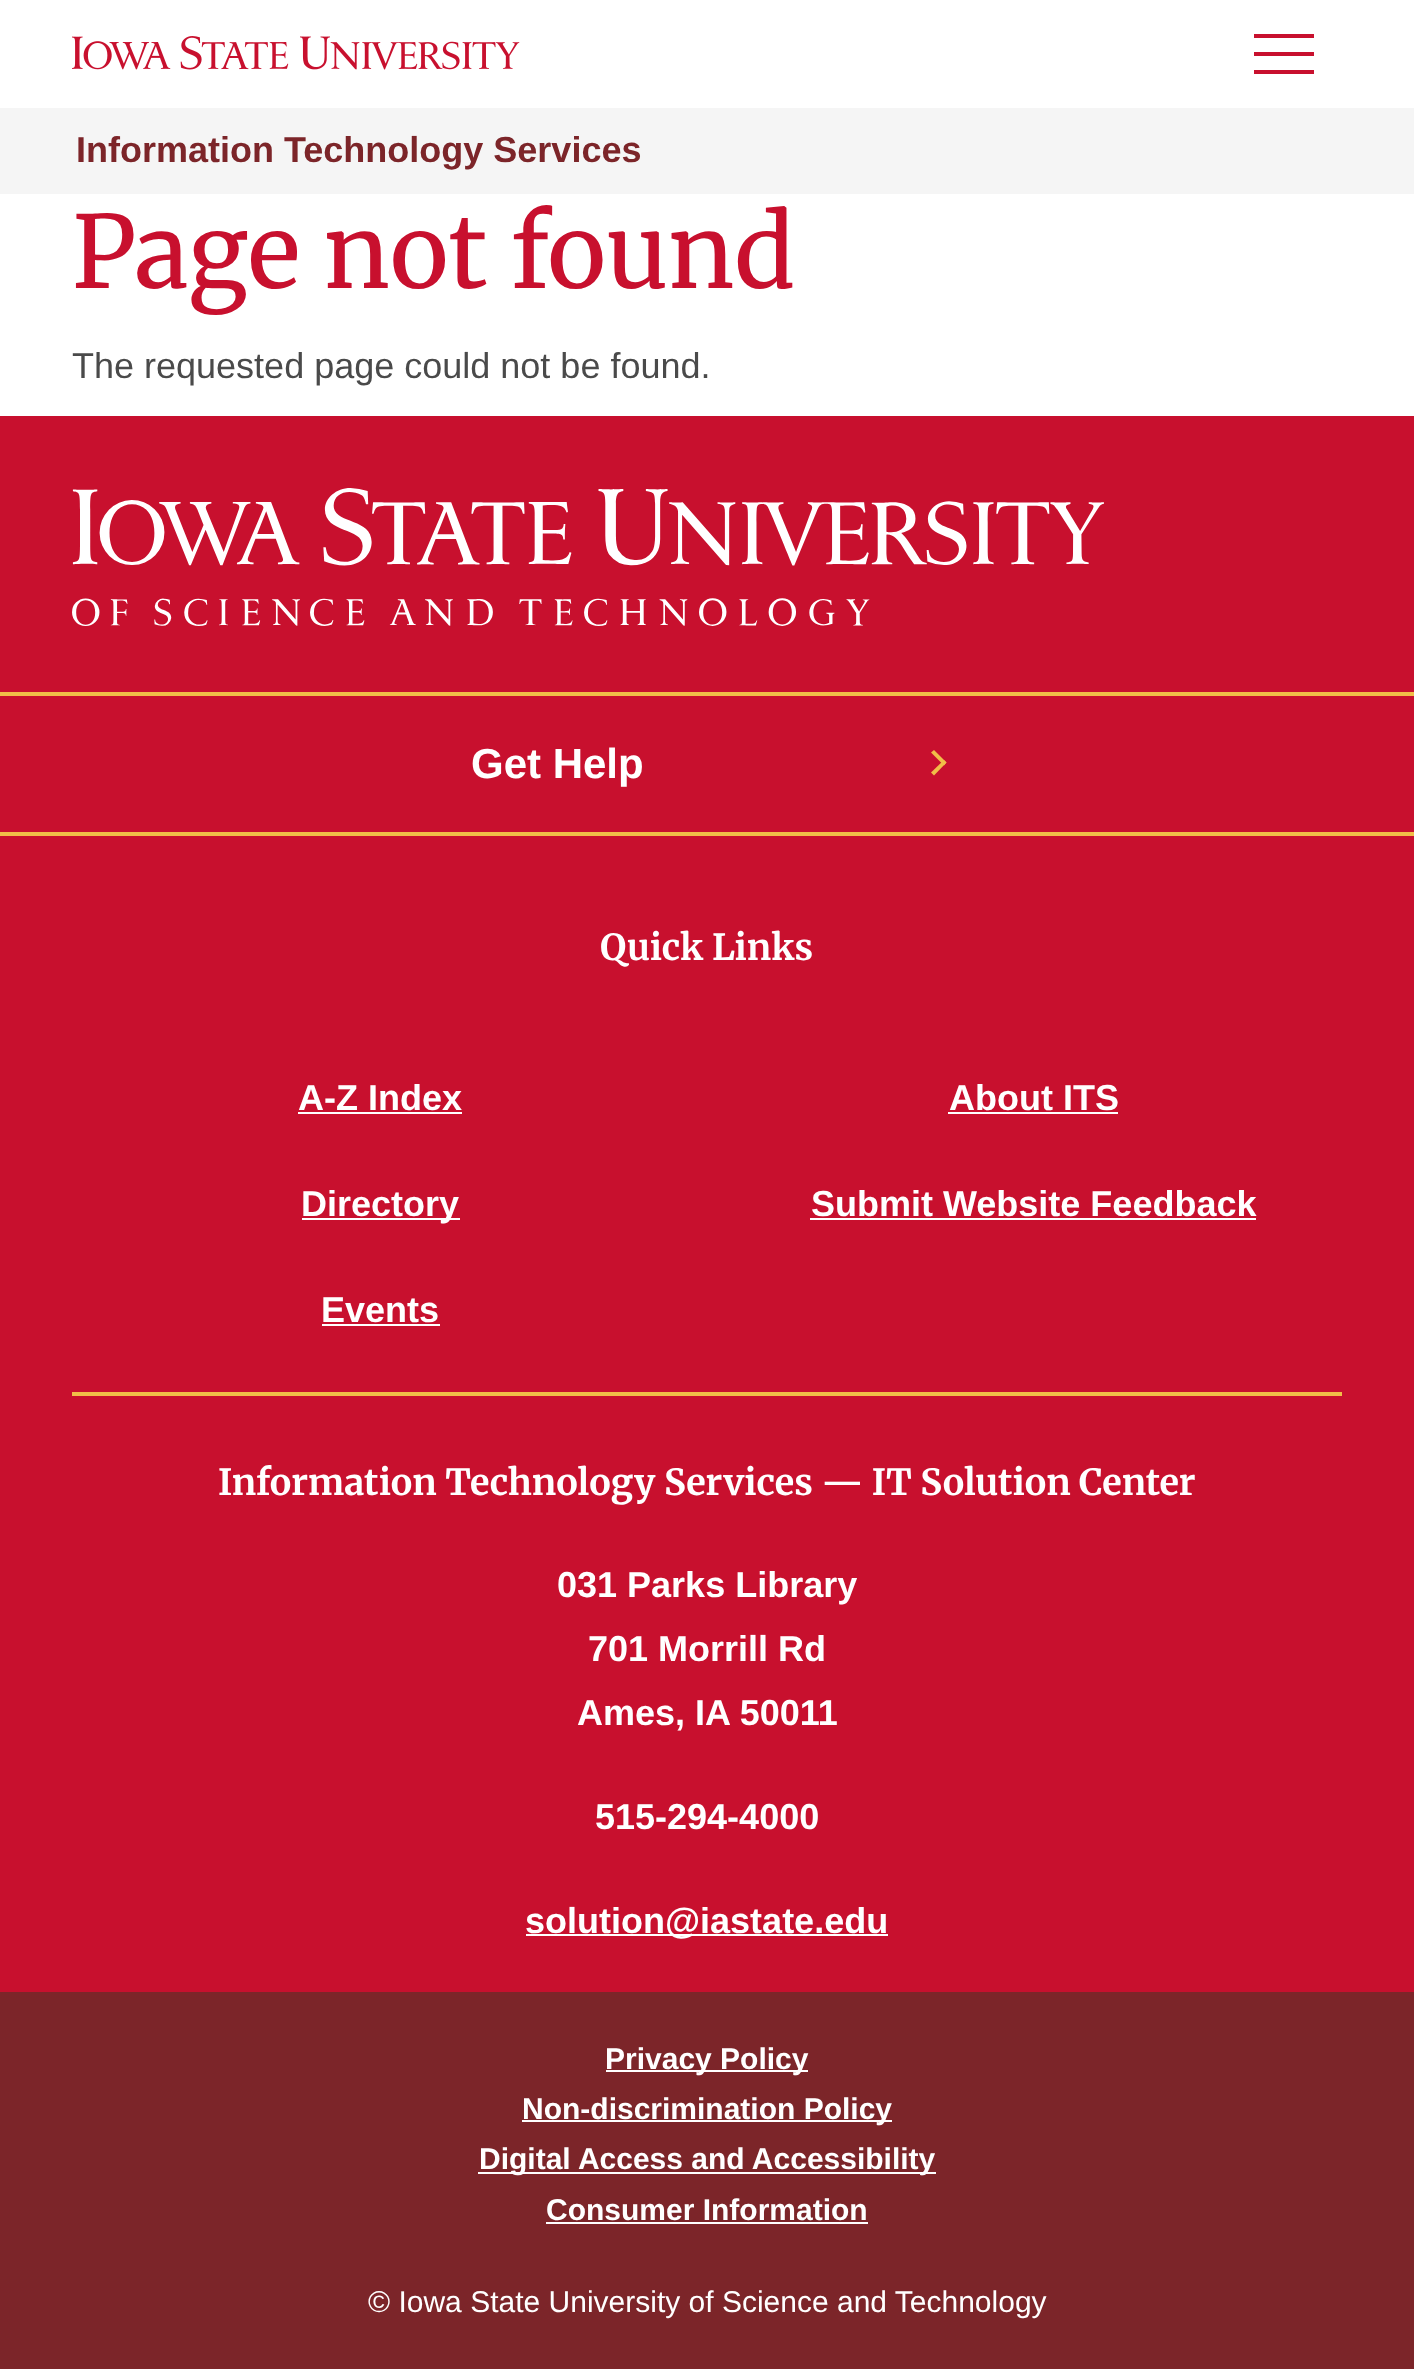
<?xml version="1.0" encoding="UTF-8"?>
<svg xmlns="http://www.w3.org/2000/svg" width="1414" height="2369">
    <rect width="100%" height="100%" fill="#FFFFFF"/>
    <rect x="1254" y="34" width="60" height="4" fill="#C8102E"/>
    <rect x="1254" y="52" width="60" height="4" fill="#C8102E"/>
    <rect x="1254" y="70" width="60" height="4" fill="#C8102E"/>
    <image x="72" y="36" width="448" height="34" href="img_01.png"/>
    <rect x="0" y="108" width="1414" height="86" fill="#F5F5F5"/>
    <text x="76" y="162" font-family="Liberation Sans" font-size="36" font-weight="700" fill="#7C2529">Information Technology Services</text>
    <text x="72" y="288" font-family="Merriweather" font-size="100" fill="#C8102E">Page not found</text>
    <text x="72" y="378" font-family="Liberation Sans" font-size="36" fill="#4A4A4A">The requested page could not be found.</text>
    <rect x="0" y="416" width="1414" height="1576" fill="#C8102E"/>
    <image x="72" y="488" width="1032" height="138" href="img_02.png"/>
    <rect x="0" y="692" width="1414" height="4" fill="#F1BE48"/>
    <rect x="0" y="832" width="1414" height="4" fill="#F1BE48"/>
    <text x="471" y="778" font-family="Liberation Sans" font-size="42" font-weight="700" fill="#FFFFFF">Get Help</text>
    <path d="M 931 752.5 L 934 750 L 946.5 762.5 L 944 765.5 Z" fill="#F1BE48"/>
    <path d="M 931 772.5 L 944 760 L 946.5 762.5 L 934 775.5 Z" fill="#F1BE48"/>
    <rect x="72" y="1392" width="1270" height="4" fill="#F1BE48"/>
    <text x="600" y="960" font-family="Merriweather" font-size="36" font-weight="700" fill="#FFFFFF">Quick Links</text>
    <text x="298" y="1110" font-family="Liberation Sans" font-size="36" font-weight="700" fill="#FFFFFF">A-Z Index</text>
    <rect x="298" y="1112" width="164" height="2" fill="#FFFFFF"/>
    <text x="949" y="1110" font-family="Liberation Sans" font-size="36" font-weight="700" fill="#FFFFFF">About ITS</text>
    <rect x="948" y="1112" width="170" height="2" fill="#FFFFFF"/>
    <rect x="302" y="1218" width="158" height="2" fill="#FFFFFF"/>
    <text x="301" y="1216" font-family="Liberation Sans" font-size="36" font-weight="700" fill="#FFFFFF">Directory</text>
    <text x="811" y="1216" font-family="Liberation Sans" font-size="36" font-weight="700" fill="#FFFFFF">Submit Website Feedback</text>
    <rect x="810" y="1218" width="446" height="2" fill="#FFFFFF"/>
    <text x="321" y="1322" font-family="Liberation Sans" font-size="36" font-weight="700" fill="#FFFFFF">Events</text>
    <rect x="322" y="1324" width="118" height="2" fill="#FFFFFF"/>
    <text x="218" y="1495" font-family="Merriweather" font-size="36" font-weight="700" fill="#FFFFFF">Information Technology Services — IT Solution Center</text>
    <text x="557" y="1597" font-family="Liberation Sans" font-size="36" font-weight="700" fill="#FFFFFF">031 Parks Library</text>
    <text x="588" y="1661" font-family="Liberation Sans" font-size="36" font-weight="700" fill="#FFFFFF">701 Morrill Rd</text>
    <text x="577" y="1725" font-family="Liberation Sans" font-size="36" font-weight="700" fill="#FFFFFF">Ames, IA 50011</text>
    <text x="595" y="1829" font-family="Liberation Sans" font-size="36" font-weight="700" fill="#FFFFFF">515-294-4000</text>
    <rect x="526" y="1934" width="362" height="2" fill="#FFFFFF"/>
    <text x="525" y="1933" font-family="Liberation Sans" font-size="36" font-weight="700" fill="#FFFFFF">solution@iastate.edu</text>
    <rect x="0" y="1992" width="1414" height="377" fill="#7C2529"/>
    <rect x="606" y="2070" width="202" height="2" fill="#FFFFFF"/>
    <text x="605" y="2069" font-family="Liberation Sans" font-size="30" font-weight="700" fill="#FFFFFF">Privacy Policy</text>
    <rect x="522" y="2120" width="370" height="2" fill="#FFFFFF"/>
    <text x="522" y="2119" font-family="Liberation Sans" font-size="30" font-weight="700" fill="#FFFFFF">Non-discrimination Policy</text>
    <rect x="478" y="2172" width="458" height="2" fill="#FFFFFF"/>
    <text x="479" y="2169" font-family="Liberation Sans" font-size="30" font-weight="700" fill="#FFFFFF">Digital Access and Accessibility</text>
    <text x="546" y="2220" font-family="Liberation Sans" font-size="30" font-weight="700" fill="#FFFFFF">Consumer Information</text>
    <rect x="546" y="2222" width="322" height="2" fill="#FFFFFF"/>
    <text x="368" y="2312" font-family="Liberation Sans" font-size="30" fill="#FFFFFF">© Iowa State University of Science and Technology</text>
</svg>
